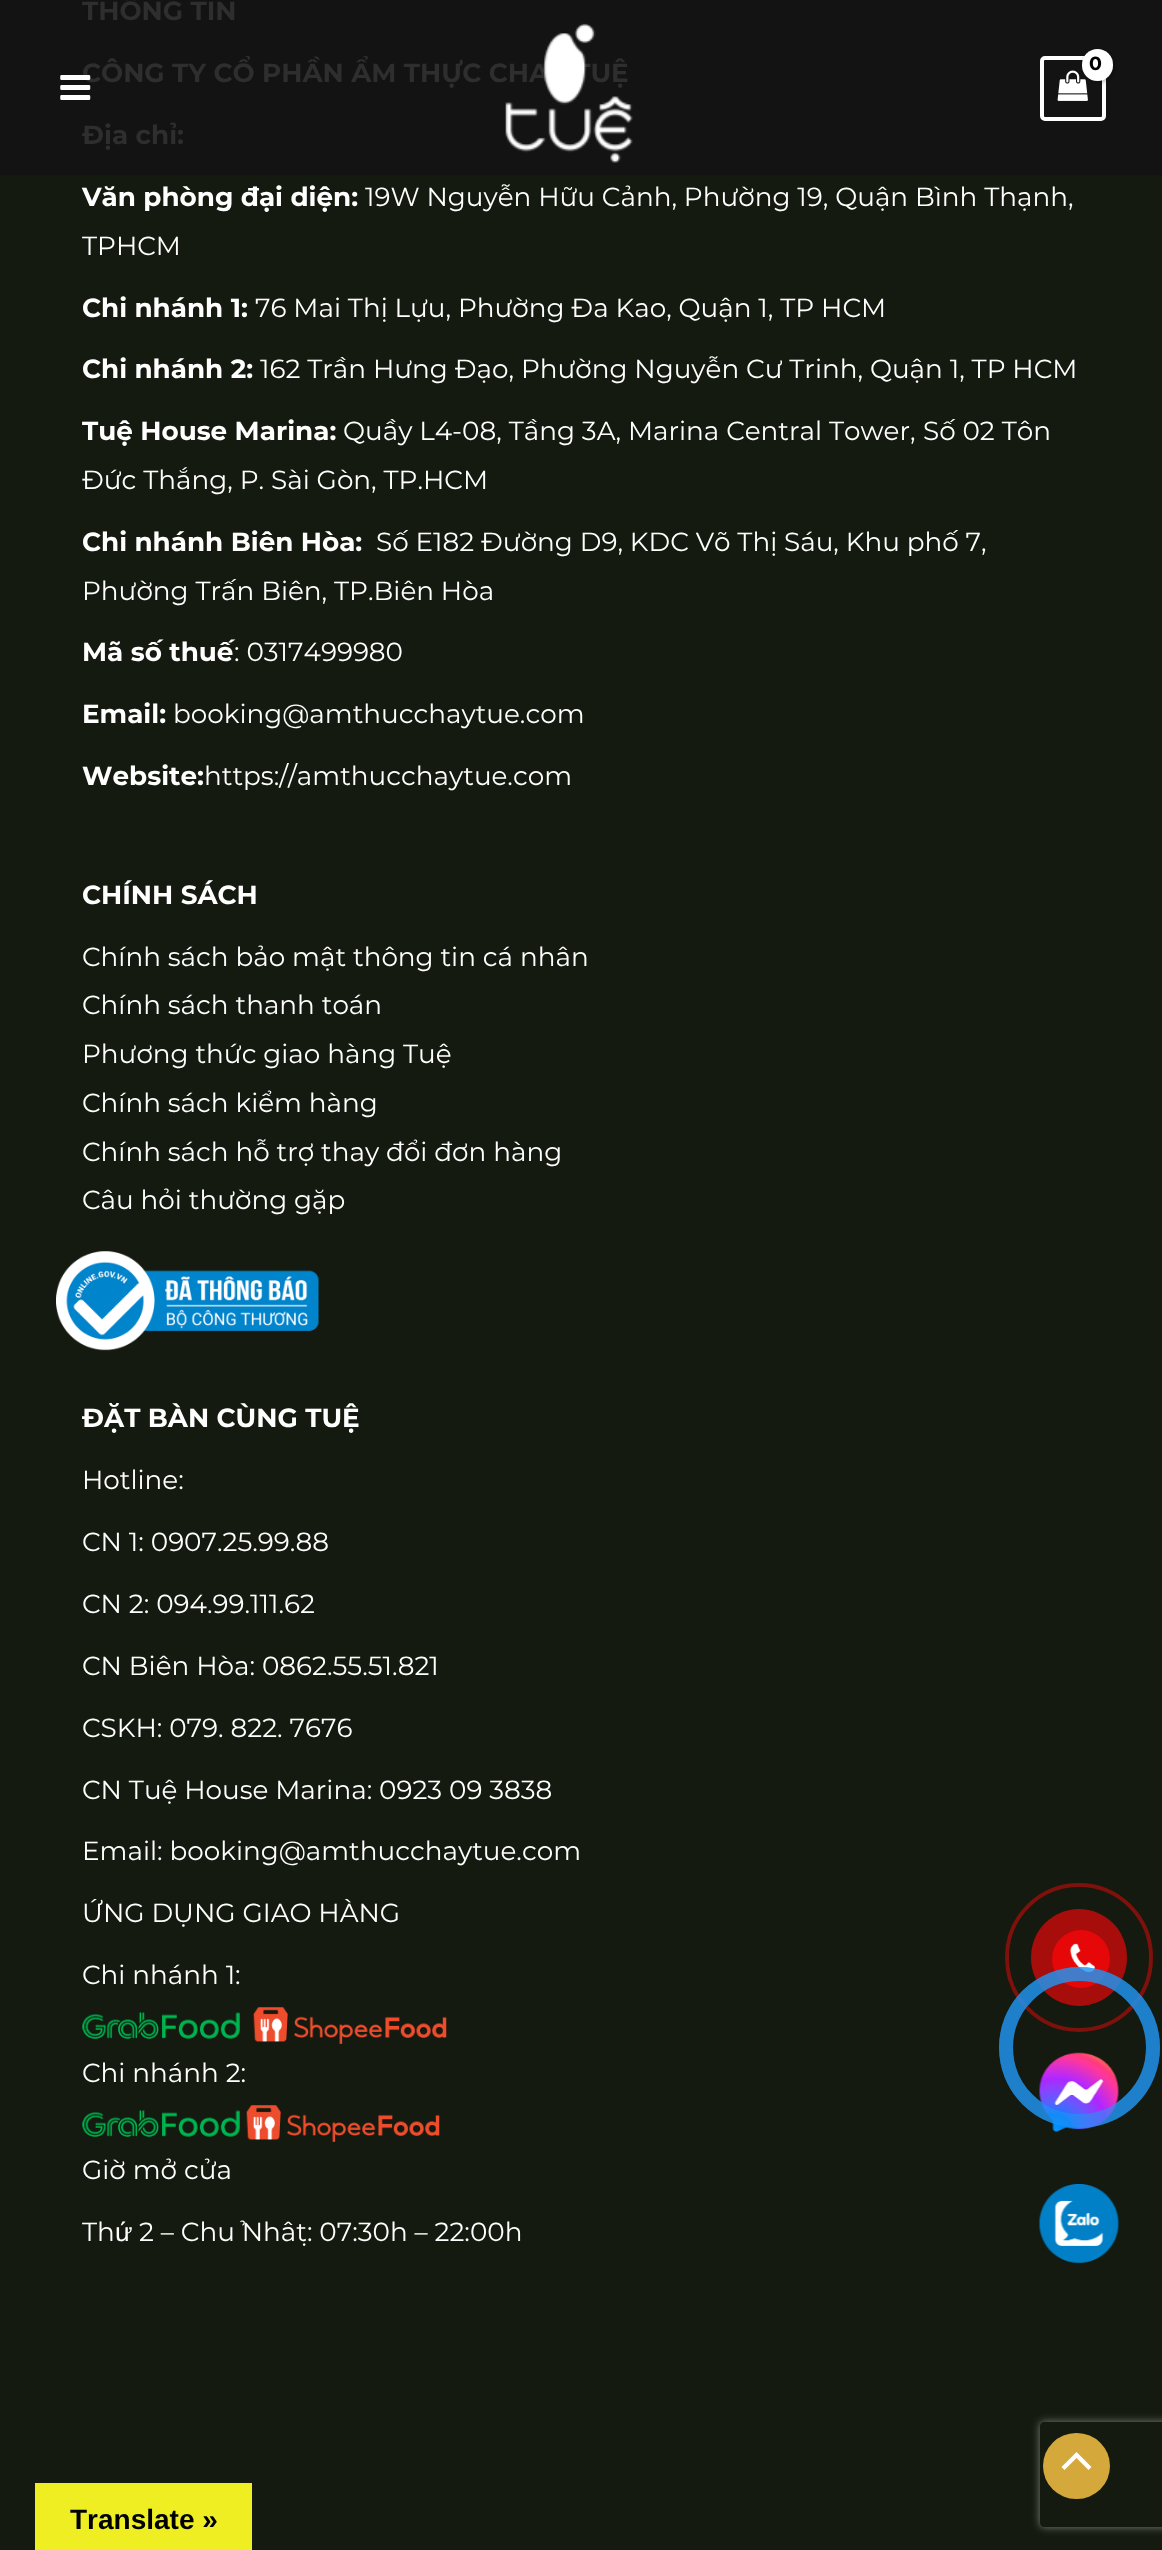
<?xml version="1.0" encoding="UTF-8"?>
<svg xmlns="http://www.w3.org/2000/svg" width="1162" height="2550">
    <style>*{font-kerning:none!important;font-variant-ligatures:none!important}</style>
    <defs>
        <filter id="blur1" x="-50%" y="-200%" width="200%" height="500%"><feGaussianBlur stdDeviation="2.5"/></filter>
        <clipPath id="clip1"><path d="M 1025 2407 H 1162 V 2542 H 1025 Z M 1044 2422 H 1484 C 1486 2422 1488 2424 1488 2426 V 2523 C 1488 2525 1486 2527 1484 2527 H 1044 C 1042 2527 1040 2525 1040 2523 V 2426 C 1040 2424 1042 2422 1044 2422 Z" clip-rule="evenodd"/></clipPath>
        <filter id="blur2" x="-50%" y="-200%" width="200%" height="500%"><feGaussianBlur stdDeviation="4.5"/></filter>
    </defs>
    <rect width="100%" height="100%" fill="#141A0F"/>
    <rect x="0" y="0" width="1162" height="175" fill="#121312"/>
    <text x="82" y="20" font-family="Montserrat" font-size="26.25" font-weight="700" fill="#2E2E2E">THÔNG TIN</text>
    <text x="82" y="82" font-family="Montserrat" font-size="26.25" font-weight="700" fill="#2E2E2E">CÔNG TY CỔ PHẦN ẨM THỰC CHAY TUỆ</text>
    <text x="82" y="144" font-family="Montserrat" font-size="26.25" font-weight="700" fill="#2E2E2E">Địa chỉ:</text>
    <text x="82" y="206" font-family="Montserrat" font-size="26.25" font-weight="700" fill="#FFFFFF">Văn phòng đại diện:</text>
    <text x="365" y="206" font-family="Montserrat" font-size="26.25" fill="#FFFFFF">19W Nguyễn Hữu Cảnh, Phường 19, Quận Bình Thạnh,</text>
    <text x="82" y="255" font-family="Montserrat" font-size="26.25" fill="#FFFFFF">TPHCM</text>
    <text x="82" y="317" font-family="Montserrat" font-size="26.25" font-weight="700" fill="#FFFFFF">Chi nhánh 1:</text>
    <text x="255" y="317" font-family="Montserrat" font-size="26.25" fill="#FFFFFF">76 Mai Thị Lựu, Phường Đa Kao, Quận 1, TP HCM</text>
    <text x="82" y="378" font-family="Montserrat" font-size="26.25" font-weight="700" fill="#FFFFFF">Chi nhánh 2:</text>
    <text x="260" y="378" font-family="Montserrat" font-size="26.25" fill="#FFFFFF">162 Trần Hưng Đạo, Phường Nguyễn Cư Trinh, Quận 1, TP HCM</text>
    <text x="82" y="440" font-family="Montserrat" font-size="26.25" font-weight="700" fill="#FFFFFF">Tuệ House Marina:</text>
    <text x="343" y="440" font-family="Montserrat" font-size="26.25" fill="#FFFFFF">Quầy L4-08, Tầng 3A, Marina Central Tower,</text>
    <text x="923" y="440" font-family="Montserrat" font-size="26.25" fill="#FFFFFF">Số 02 Tôn</text>
    <text x="82" y="489" font-family="Montserrat" font-size="26.25" fill="#FFFFFF">Đức Thắng, P. Sài Gòn, TP.HCM</text>
    <text x="82" y="551" font-family="Montserrat" font-size="26.25" font-weight="700" fill="#FFFFFF">Chi nhánh Biên Hòa:</text>
    <text x="376" y="551" font-family="Montserrat" font-size="26.25" fill="#FFFFFF">Số E182 Đường D9, KDC Võ Thị Sáu, Khu phố 7,</text>
    <text x="82" y="600" font-family="Montserrat" font-size="26.25" fill="#FFFFFF">Phường Trấn Biên, TP.Biên Hòa</text>
    <text x="82" y="661" font-family="Montserrat" font-size="26.25" font-weight="700" fill="#FFFFFF">Mã số thuế</text>
    <text x="234" y="661" font-family="Montserrat" font-size="26.25" fill="#FFFFFF">: 0317499980</text>
    <text x="82" y="723" font-family="Montserrat" font-size="26.25" font-weight="700" fill="#FFFFFF">Email:</text>
    <text x="173" y="723" font-family="Montserrat" font-size="26.25" fill="#FFFFFF">booking@amthucchaytue.com</text>
    <text x="82" y="785" font-family="Montserrat" font-size="26.25" font-weight="700" fill="#FFFFFF">Website:</text>
    <text x="204" y="785" font-family="Montserrat" font-size="26.25" fill="#FFFFFF">https://amthucchaytue.com</text>
    <text x="82" y="904" font-family="Montserrat" font-size="26.25" font-weight="700" fill="#FFFFFF">CHÍNH SÁCH</text>
    <text font-family="Montserrat" font-size="26.25" fill="#FFFFFF">
        <tspan x="82" y="966">Chính sách bảo mật thông tin cá nhân</tspan>
        <tspan x="82" y="1014">Chính sách thanh toán</tspan>
        <tspan x="82" y="1063">Phương thức giao hàng Tuệ</tspan>
        <tspan x="82" y="1112">Chính sách kiểm hàng</tspan>
        <tspan x="82" y="1161">Chính sách hỗ trợ thay đổi đơn hàng</tspan>
        <tspan x="82" y="1209">Câu hỏi thường gặp</tspan>
    </text>
    <image x="56" y="1251" width="263" height="100" href="img_01.png"/>
    <text x="82" y="1427" font-family="Montserrat" font-size="26.25" font-weight="700" fill="#FFFFFF">ĐẶT BÀN CÙNG TUỆ</text>
    <text x="82" y="1489" font-family="Montserrat" font-size="26.25" fill="#FFFFFF">Hotline:</text>
    <text x="82" y="1551" font-family="Montserrat" font-size="26.25" fill="#FFFFFF">CN 1: 0907.25.99.88</text>
    <text x="82" y="1613" font-family="Montserrat" font-size="26.25" fill="#FFFFFF">CN 2: 094.99.111.62</text>
    <text x="82" y="1675" font-family="Montserrat" font-size="26.25" fill="#FFFFFF">CN Biên Hòa: 0862.55.51.821</text>
    <text x="82" y="1737" font-family="Montserrat" font-size="26.25" fill="#FFFFFF">CSKH: 079. 822. 7676</text>
    <text x="82" y="1799" font-family="Montserrat" font-size="26.25" fill="#FFFFFF">CN Tuệ House Marina: 0923 09 3838</text>
    <text x="82" y="1860" font-family="Montserrat" font-size="26.25" fill="#FFFFFF">Email: booking@amthucchaytue.com</text>
    <text x="82" y="1922" font-family="Montserrat" font-size="26.25" fill="#FFFFFF">ỨNG DỤNG GIAO HÀNG</text>
    <text x="82" y="1984" font-family="Montserrat" font-size="26.25" fill="#FFFFFF">Chi nhánh 1:</text>
    <image x="82" y="2012" width="158" height="27" href="img_02.png"/>
    <image x="253" y="2007" width="194" height="37" href="img_03.png"/>
    <text x="82" y="2082" font-family="Montserrat" font-size="26.25" fill="#FFFFFF">Chi nhánh 2:</text>
    <image x="82" y="2110" width="158" height="27" href="img_02.png"/>
    <image x="246" y="2105" width="194" height="37" href="img_03.png"/>
    <text x="82" y="2179" font-family="Montserrat" font-size="26.25" fill="#FFFFFF">Giờ mở cửa</text>
    <text x="82" y="2241" font-family="Montserrat" font-size="26.25" fill="#FFFFFF">Th</text>
    <text x="115" y="2241" font-family="Liberation Sans" font-size="26.25" fill="#FFFFFF">ứ</text>
    <text x="139" y="2241" font-family="Montserrat" font-size="26.25" fill="#FFFFFF">2 – Chủ Nhật: 07:30h – 22:00h</text>
    <image x="505" y="23" width="128" height="140" href="img_04.png"/>
    <rect x="1042" y="58" width="62" height="61" rx="3" fill="none" stroke="#FFFFFF" stroke-width="4"/>
    <image x="1057" y="70" width="31" height="31" href="img_05.png"/>
    <rect x="1083" y="51" width="32" height="31" rx="15.5" fill="#000000" fill-opacity="0.3" filter="url(#blur1)"/>
    <rect x="1082" y="49" width="31" height="32" rx="15.5" fill="#FFFFFF"/>
    <text x="1089" y="70" font-family="Montserrat" font-size="19" font-weight="700" letter-spacing="-1" fill="#000000">0</text>
    <image x="60" y="75" width="31" height="25" href="img_06.png"/>
    <rect x="1007" y="1885" width="144" height="145" rx="72" fill="none" stroke="#7D110C" stroke-width="4"/>
    <rect x="1031" y="1909" width="96" height="97" rx="48" fill="#A70D0A"/>
    <circle cx="1081" cy="1959" r="29" fill="#E60808"/>
    <image x="1070" y="1943" width="25" height="30" href="img_07.png"/>
    <circle cx="1079.5" cy="2047.5" r="73.5" fill="none" stroke="#2196F3" stroke-opacity="0.58" stroke-width="14"/>
    <image x="1039" y="2052" width="80" height="80" href="img_08.png"/>
    <circle cx="1079.5" cy="2047.5" r="73.5" fill="none" stroke="#2196F3" stroke-opacity="0.58" stroke-width="14"/>
    <image x="1039" y="2184" width="80" height="79" href="img_09.png"/>
    <g clip-path="url(#clip1)">
        <rect x="1040" y="2422" width="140" height="105" rx="4" fill="#808080" filter="url(#blur2)"/>
    </g>
    <rect x="1043" y="2433" width="67" height="66" rx="33" fill="#D5A83C"/>
    <path d="M 1091.5 2467 L 1076.5 2452 L 1061.5 2467 L 1064.5 2470 L 1076.5 2458 L 1088.5 2470 Z" fill="#FFFFFF"/>
    <rect x="35" y="2483" width="217" height="67" fill="#EEEE22"/>
    <text x="70" y="2529" font-family="Liberation Sans" font-size="28" font-weight="700" fill="#000000">Translate »</text>
</svg>
